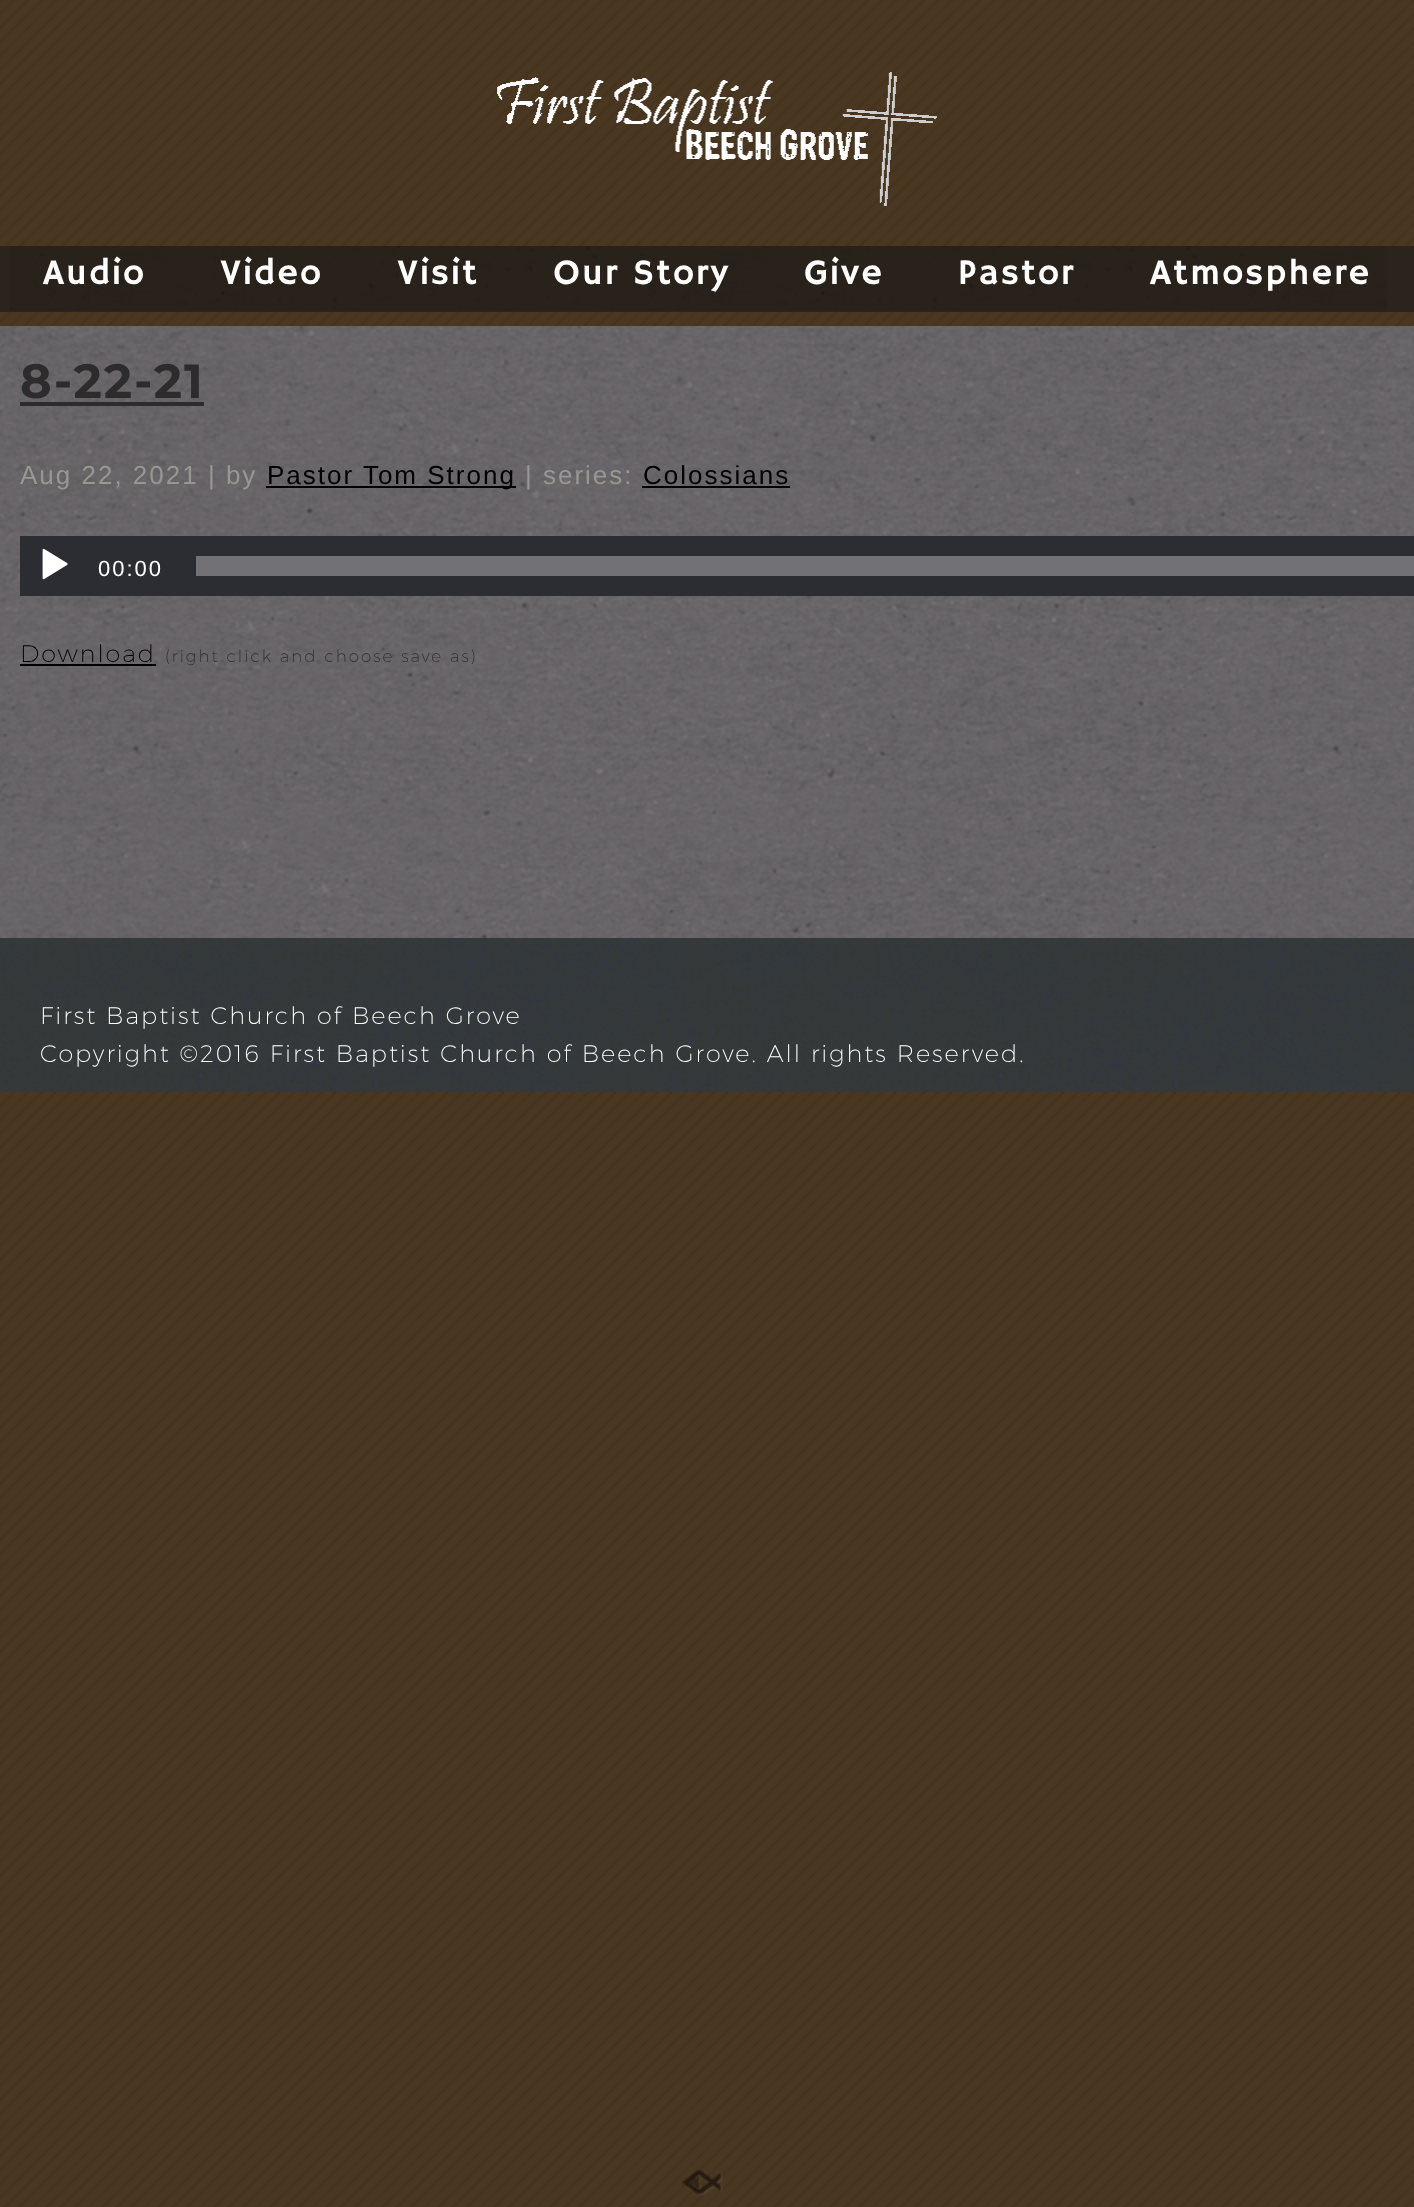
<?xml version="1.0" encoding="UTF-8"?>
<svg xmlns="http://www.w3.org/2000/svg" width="1414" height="2207">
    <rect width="100%" height="100%" fill="#4A3721"/>
    <image x="0" y="0" width="1414" height="2207" href="img_01.png"/>
    <image x="497" y="72" width="440" height="134" href="img_02.png"/>
    <rect x="0" y="246" width="1414" height="66" fill="#2B241D"/>
    <image x="10" y="246" width="1376" height="65" href="img_03.png"/>
    <text x="43" y="284" font-family="Hammersmith One" font-size="36" letter-spacing="2" fill="#FFFFFF">Audio</text>
    <text x="220" y="284" font-family="Hammersmith One" font-size="36" letter-spacing="2" fill="#FFFFFF">Video</text>
    <text x="397" y="284" font-family="Hammersmith One" font-size="36" letter-spacing="2" fill="#FFFFFF">Visit</text>
    <text x="553" y="284" font-family="Hammersmith One" font-size="36" letter-spacing="2" fill="#FFFFFF">Our Story</text>
    <text x="804" y="284" font-family="Hammersmith One" font-size="36" letter-spacing="2" fill="#FFFFFF">Give</text>
    <text x="958" y="284" font-family="Hammersmith One" font-size="36" letter-spacing="2" fill="#FFFFFF">Pastor</text>
    <text x="1150" y="284" font-family="Hammersmith One" font-size="36" letter-spacing="2" fill="#FFFFFF">Atmosphere</text>
    <rect x="0" y="326" width="1414" height="612" fill="#787478"/>
    <image x="0" y="326" width="1414" height="612" href="img_04.png"/>
    <text x="20" y="398" font-family="Montserrat" font-size="48" font-weight="700" letter-spacing="2" fill="#2C2C2C">8-22-21</text>
    <rect x="20" y="402" width="184" height="4" fill="#2C2C2C"/>
    <text x="20" y="484" font-family="Liberation Sans" font-size="26" letter-spacing="2" fill="#999792">Aug 22, 2021 | by</text>
    <rect x="266" y="486" width="250" height="2" fill="#000000"/>
    <text x="267" y="484" font-family="Liberation Sans" font-size="26" letter-spacing="2" fill="#000000">Pastor Tom Strong</text>
    <text x="525" y="484" font-family="Liberation Sans" font-size="26" letter-spacing="2" fill="#999792">| series:</text>
    <text x="643" y="484" font-family="Liberation Sans" font-size="26" letter-spacing="2" fill="#000000">Colossians</text>
    <rect x="642" y="486" width="148" height="2" fill="#000000"/>
    <rect x="20" y="536" width="1394" height="60" fill="#2C2D33"/>
    <image x="42" y="548" width="26" height="32" href="img_05.png"/>
    <text x="98" y="576" font-family="Liberation Sans" font-size="22" letter-spacing="2" fill="#FFFFFF">00:00</text>
    <rect x="196" y="556" width="1218" height="20" fill="#727276"/>
    <text x="20" y="662" font-family="Montserrat" font-size="24" font-weight="200" letter-spacing="2" fill="#000000">Download</text>
    <rect x="20" y="664" width="136" height="2" fill="#000000"/>
    <text x="165" y="662" font-family="Montserrat" font-size="16.75" font-weight="200" letter-spacing="2" fill="#2C2C2C">(right click and choose save as)</text>
    <rect x="0" y="938" width="1414" height="154" fill="#363636"/>
    <image x="0" y="938" width="1414" height="154" href="img_06.png"/>
    <text font-family="Montserrat" font-size="24" font-weight="200" letter-spacing="2" fill="#FFFFFF">
        <tspan x="40" y="1024">First Baptist Church of Beech Grove</tspan>
        <tspan x="40" y="1062">Copyright ©2016 First Baptist Church of Beech Grove. All rights Reserved.</tspan>
    </text>
    <image x="682" y="2170" width="41" height="26" href="img_07.png"/>
</svg>
